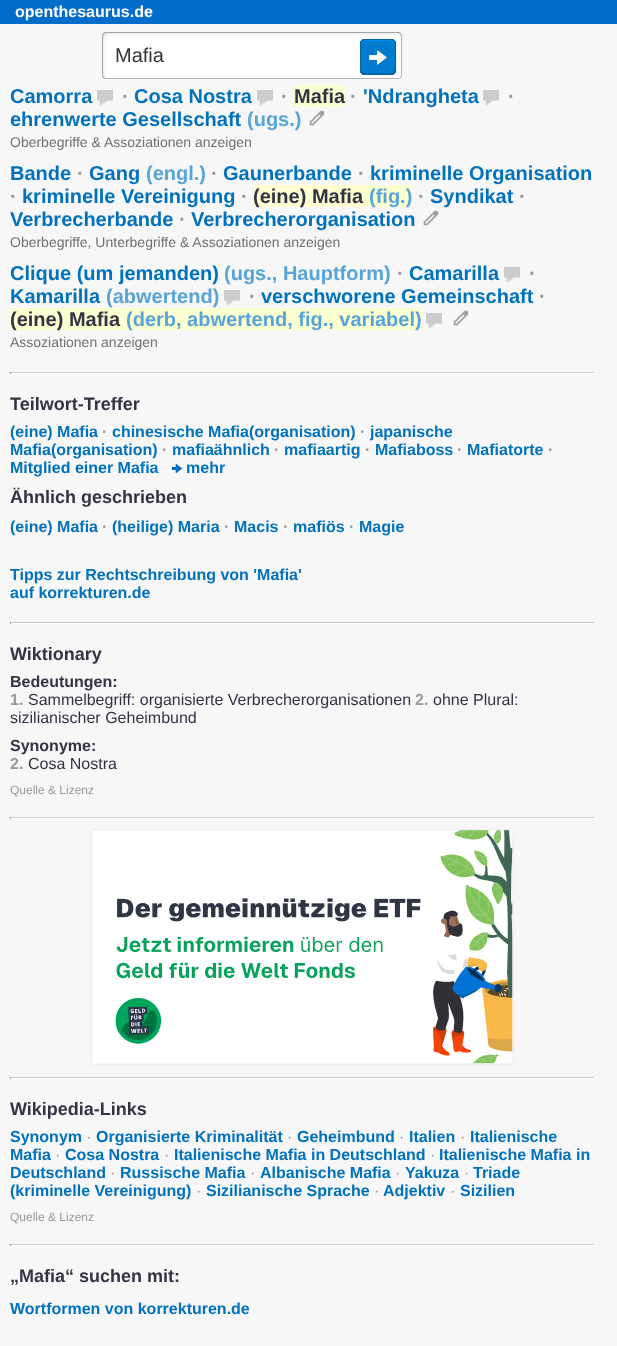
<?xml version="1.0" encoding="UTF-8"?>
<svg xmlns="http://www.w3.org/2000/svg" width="617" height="1346">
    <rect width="100%" height="100%" fill="#F7F7F7"/>
    <rect x="0" y="0" width="617" height="24" fill="#046CCB"/>
    <text x="15" y="17" font-family="Liberation Sans" font-size="16" font-weight="700" fill="#FFFFFF">openthesaurus.de</text>
    <image x="102" y="32" width="300" height="47" href="img_01.png"/>
    <text x="115" y="62" font-family="Liberation Sans" font-size="20" fill="#333333">Mafia</text>
    <image x="360" y="39" width="36" height="36" href="img_02.png"/>
    <text x="10" y="103" font-family="Liberation Sans" font-size="20" font-weight="700" fill="#0071BD">Camorra</text>
    <image x="97" y="90" width="16" height="16" href="img_03.png"/>
    <text x="122" y="103" font-family="Liberation Sans" font-size="20" font-weight="700" fill="#999999">·</text>
    <text x="134" y="103" font-family="Liberation Sans" font-size="20" font-weight="700" fill="#0071BD">Cosa Nostra</text>
    <image x="257" y="90" width="16" height="16" href="img_03.png"/>
    <text x="281" y="103" font-family="Liberation Sans" font-size="20" font-weight="700" fill="#999999">·</text>
    <rect x="294" y="85" width="51" height="22" fill="#FCFFD0"/>
    <text x="294" y="103" font-family="Liberation Sans" font-size="20" font-weight="700" fill="#333344">Mafia</text>
    <text x="350" y="103" font-family="Liberation Sans" font-size="20" font-weight="700" fill="#999999">·</text>
    <text x="363" y="103" font-family="Liberation Sans" font-size="20" font-weight="700" fill="#0071BD">'Ndrangheta</text>
    <image x="483" y="90" width="16" height="16" href="img_03.png"/>
    <text x="508" y="103" font-family="Liberation Sans" font-size="20" font-weight="700" fill="#999999">·</text>
    <text x="10" y="126" font-family="Liberation Sans" font-size="20" font-weight="700" fill="#0071BD">ehrenwerte Gesellschaft</text>
    <text x="247" y="126" font-family="Liberation Sans" font-size="20" font-weight="700" fill="#57A4D8">(ugs.)</text>
    <image x="309" y="110" width="16" height="16" href="img_04.png"/>
    <text x="10" y="147" font-family="Liberation Sans" font-size="14" fill="#707070">Oberbegriffe &amp; Assoziationen anzeigen</text>
    <text x="10" y="180" font-family="Liberation Sans" font-size="20" font-weight="700" fill="#0071BD">Bande</text>
    <text x="77" y="180" font-family="Liberation Sans" font-size="20" font-weight="700" fill="#999999">·</text>
    <text x="89" y="180" font-family="Liberation Sans" font-size="20" font-weight="700" fill="#0071BD">Gang</text>
    <text x="146" y="180" font-family="Liberation Sans" font-size="20" font-weight="700" fill="#57A4D8">(engl.)</text>
    <text x="211" y="180" font-family="Liberation Sans" font-size="20" font-weight="700" fill="#999999">·</text>
    <text x="223" y="180" font-family="Liberation Sans" font-size="20" font-weight="700" fill="#0071BD">Gaunerbande</text>
    <text x="358" y="180" font-family="Liberation Sans" font-size="20" font-weight="700" fill="#999999">·</text>
    <text x="370" y="180" font-family="Liberation Sans" font-size="20" font-weight="700" fill="#0071BD">kriminelle Organisation</text>
    <text x="10" y="203" font-family="Liberation Sans" font-size="20" font-weight="700" fill="#999999">·</text>
    <text x="22" y="203" font-family="Liberation Sans" font-size="20" font-weight="700" fill="#0071BD">kriminelle Vereinigung</text>
    <text x="241" y="203" font-family="Liberation Sans" font-size="20" font-weight="700" fill="#999999">·</text>
    <rect x="253" y="185" width="159" height="22" fill="#FCFFD0"/>
    <text x="253" y="203" font-family="Liberation Sans" font-size="20" font-weight="700" fill="#333344">(eine) Mafia</text>
    <text x="369" y="203" font-family="Liberation Sans" font-size="20" font-weight="700" fill="#57A4D8">(fig.)</text>
    <text x="418" y="203" font-family="Liberation Sans" font-size="20" font-weight="700" fill="#999999">·</text>
    <text x="430" y="203" font-family="Liberation Sans" font-size="20" font-weight="700" fill="#0071BD">Syndikat</text>
    <text x="519" y="203" font-family="Liberation Sans" font-size="20" font-weight="700" fill="#999999">·</text>
    <text x="10" y="226" font-family="Liberation Sans" font-size="20" font-weight="700" fill="#0071BD">Verbrecherbande</text>
    <text x="179" y="226" font-family="Liberation Sans" font-size="20" font-weight="700" fill="#999999">·</text>
    <text x="191" y="226" font-family="Liberation Sans" font-size="20" font-weight="700" fill="#0071BD">Verbrecherorganisation</text>
    <image x="423" y="210" width="16" height="16" href="img_04.png"/>
    <text x="10" y="247" font-family="Liberation Sans" font-size="14" fill="#707070">Oberbegriffe, Unterbegriffe &amp; Assoziationen anzeigen</text>
    <text x="10" y="280" font-family="Liberation Sans" font-size="20" font-weight="700" fill="#0071BD">Clique (um jemanden)</text>
    <text x="224" y="280" font-family="Liberation Sans" font-size="20" font-weight="700" fill="#57A4D8">(ugs., Hauptform)</text>
    <text x="397" y="280" font-family="Liberation Sans" font-size="20" font-weight="700" fill="#999999">·</text>
    <text x="409" y="280" font-family="Liberation Sans" font-size="20" font-weight="700" fill="#0071BD">Camarilla</text>
    <image x="504" y="267" width="16" height="16" href="img_03.png"/>
    <text x="529" y="280" font-family="Liberation Sans" font-size="20" font-weight="700" fill="#999999">·</text>
    <text x="10" y="303" font-family="Liberation Sans" font-size="20" font-weight="700" fill="#0071BD">Kamarilla</text>
    <text x="106" y="303" font-family="Liberation Sans" font-size="20" font-weight="700" fill="#57A4D8">(abwertend)</text>
    <image x="224" y="290" width="16" height="16" href="img_03.png"/>
    <text x="249" y="303" font-family="Liberation Sans" font-size="20" font-weight="700" fill="#999999">·</text>
    <text x="261" y="303" font-family="Liberation Sans" font-size="20" font-weight="700" fill="#0071BD">verschworene Gemeinschaft</text>
    <text x="539" y="303" font-family="Liberation Sans" font-size="20" font-weight="700" fill="#999999">·</text>
    <rect x="10" y="308" width="411" height="22" fill="#FCFFD0"/>
    <text x="10" y="326" font-family="Liberation Sans" font-size="20" font-weight="700" fill="#333344">(eine) Mafia</text>
    <text x="126" y="326" font-family="Liberation Sans" font-size="20" font-weight="700" fill="#57A4D8">(derb, abwertend, fig., variabel)</text>
    <image x="426" y="313" width="16" height="16" href="img_03.png"/>
    <image x="453" y="310" width="16" height="16" href="img_04.png"/>
    <text x="10" y="347" font-family="Liberation Sans" font-size="14" fill="#707070">Assoziationen anzeigen</text>
    <rect x="10" y="372" width="585" height="1" fill="#CCCCCC"/>
    <rect x="594" y="372" width="1" height="2" fill="#EEEEEE"/>
    <rect x="10" y="373" width="585" height="1" fill="#FFFFFF"/>
    <rect x="10" y="372" width="1" height="2" fill="#9F9F9F"/>
    <text x="10" y="410" font-family="Liberation Sans" font-size="18" font-weight="700" fill="#333344">Teilwort-Treffer</text>
    <text x="10" y="437" font-family="Liberation Sans" font-size="16" font-weight="700" fill="#0071BD">(eine) Mafia</text>
    <text x="102" y="437" font-family="Liberation Sans" font-size="16" font-weight="700" fill="#999999">·</text>
    <text x="112" y="437" font-family="Liberation Sans" font-size="16" font-weight="700" fill="#0071BD">chinesische Mafia(organisation)</text>
    <text x="360" y="437" font-family="Liberation Sans" font-size="16" font-weight="700" fill="#999999">·</text>
    <text x="370" y="437" font-family="Liberation Sans" font-size="16" font-weight="700" fill="#0071BD">japanische</text>
    <text x="10" y="455" font-family="Liberation Sans" font-size="16" font-weight="700" fill="#0071BD">Mafia(organisation)</text>
    <text x="162" y="455" font-family="Liberation Sans" font-size="16" font-weight="700" fill="#999999">·</text>
    <text x="172" y="455" font-family="Liberation Sans" font-size="16" font-weight="700" fill="#0071BD">mafiaähnlich</text>
    <text x="274" y="455" font-family="Liberation Sans" font-size="16" font-weight="700" fill="#999999">·</text>
    <text x="284" y="455" font-family="Liberation Sans" font-size="16" font-weight="700" fill="#0071BD">mafiaartig</text>
    <text x="365" y="455" font-family="Liberation Sans" font-size="16" font-weight="700" fill="#999999">·</text>
    <text x="375" y="455" font-family="Liberation Sans" font-size="16" font-weight="700" fill="#0071BD">Mafiaboss</text>
    <text x="457" y="455" font-family="Liberation Sans" font-size="16" font-weight="700" fill="#999999">·</text>
    <text x="467" y="455" font-family="Liberation Sans" font-size="16" font-weight="700" fill="#0071BD">Mafiatorte</text>
    <text x="548" y="455" font-family="Liberation Sans" font-size="16" font-weight="700" fill="#999999">·</text>
    <text x="10" y="473" font-family="Liberation Sans" font-size="16" font-weight="700" fill="#0071BD">Mitglied einer Mafia</text>
    <image x="172" y="464" width="10" height="9" href="img_05.png"/>
    <text x="186" y="473" font-family="Liberation Sans" font-size="16" font-weight="700" fill="#0071BD">mehr</text>
    <text x="10" y="503" font-family="Liberation Sans" font-size="18" font-weight="700" fill="#333344">Ähnlich geschrieben</text>
    <text x="10" y="532" font-family="Liberation Sans" font-size="16" font-weight="700" fill="#0071BD">(eine) Mafia</text>
    <text x="102" y="532" font-family="Liberation Sans" font-size="16" font-weight="700" fill="#999999">·</text>
    <text x="112" y="532" font-family="Liberation Sans" font-size="16" font-weight="700" fill="#0071BD">(heilige) Maria</text>
    <text x="224" y="532" font-family="Liberation Sans" font-size="16" font-weight="700" fill="#999999">·</text>
    <text x="234" y="532" font-family="Liberation Sans" font-size="16" font-weight="700" fill="#0071BD">Macis</text>
    <text x="283" y="532" font-family="Liberation Sans" font-size="16" font-weight="700" fill="#999999">·</text>
    <text x="293" y="532" font-family="Liberation Sans" font-size="16" font-weight="700" fill="#0071BD">mafiös</text>
    <text x="349" y="532" font-family="Liberation Sans" font-size="16" font-weight="700" fill="#999999">·</text>
    <text x="359" y="532" font-family="Liberation Sans" font-size="16" font-weight="700" fill="#0071BD">Magie</text>
    <text font-family="Liberation Sans" font-size="16" font-weight="700" fill="#0071BD">
        <tspan x="10" y="580">Tipps zur Rechtschreibung von 'Mafia'</tspan>
        <tspan x="10" y="598">auf korrekturen.de</tspan>
    </text>
    <rect x="10" y="622" width="585" height="1" fill="#CCCCCC"/>
    <rect x="594" y="622" width="1" height="2" fill="#EEEEEE"/>
    <rect x="10" y="623" width="585" height="1" fill="#FFFFFF"/>
    <rect x="10" y="622" width="1" height="2" fill="#9F9F9F"/>
    <text x="10" y="660" font-family="Liberation Sans" font-size="18" font-weight="700" fill="#333344">Wiktionary</text>
    <text x="10" y="687" font-family="Liberation Sans" font-size="16" font-weight="700" fill="#333344">Bedeutungen:</text>
    <text x="10" y="705" font-family="Liberation Sans" font-size="16" font-weight="700" fill="#999999">1.</text>
    <text x="28" y="705" font-family="Liberation Sans" font-size="16" fill="#333344">Sammelbegriff: organisierte Verbrecherorganisationen</text>
    <text x="415" y="705" font-family="Liberation Sans" font-size="16" font-weight="700" fill="#999999">2.</text>
    <text x="433" y="705" font-family="Liberation Sans" font-size="16" fill="#333344">ohne Plural:</text>
    <text x="10" y="723" font-family="Liberation Sans" font-size="16" fill="#333344">sizilianischer Geheimbund</text>
    <text x="10" y="751" font-family="Liberation Sans" font-size="16" font-weight="700" fill="#333344">Synonyme:</text>
    <text x="10" y="769" font-family="Liberation Sans" font-size="16" font-weight="700" fill="#999999">2.</text>
    <text x="28" y="769" font-family="Liberation Sans" font-size="16" fill="#333344">Cosa Nostra</text>
    <text x="10" y="794" font-family="Liberation Sans" font-size="12" fill="#999999">Quelle &amp; Lizenz</text>
    <rect x="10" y="817" width="585" height="1" fill="#CCCCCC"/>
    <rect x="594" y="817" width="1" height="2" fill="#EEEEEE"/>
    <rect x="10" y="818" width="585" height="1" fill="#FFFFFF"/>
    <rect x="10" y="817" width="1" height="2" fill="#9F9F9F"/>
    <rect x="91.5" y="829.5" width="422" height="235" fill="none" stroke="#EEEEEE"/>
    <image x="92" y="830" width="421" height="234" href="img_06.png"/>
    <rect x="10" y="1077" width="585" height="1" fill="#CCCCCC"/>
    <rect x="594" y="1077" width="1" height="2" fill="#EEEEEE"/>
    <rect x="10" y="1078" width="585" height="1" fill="#FFFFFF"/>
    <rect x="10" y="1077" width="1" height="2" fill="#9F9F9F"/>
    <text x="10" y="1115" font-family="Liberation Sans" font-size="18" font-weight="700" fill="#333344">Wikipedia-Links</text>
    <text x="10" y="1142" font-family="Liberation Sans" font-size="16" font-weight="700" fill="#0071BD">Synonym</text>
    <text x="86" y="1142" font-family="Liberation Sans" font-size="16" fill="#999999">·</text>
    <text x="96" y="1142" font-family="Liberation Sans" font-size="16" font-weight="700" fill="#0071BD">Organisierte Kriminalität</text>
    <text x="287" y="1142" font-family="Liberation Sans" font-size="16" fill="#999999">·</text>
    <text x="297" y="1142" font-family="Liberation Sans" font-size="16" font-weight="700" fill="#0071BD">Geheimbund</text>
    <text x="399" y="1142" font-family="Liberation Sans" font-size="16" fill="#999999">·</text>
    <text x="409" y="1142" font-family="Liberation Sans" font-size="16" font-weight="700" fill="#0071BD">Italien</text>
    <text x="460" y="1142" font-family="Liberation Sans" font-size="16" fill="#999999">·</text>
    <text x="470" y="1142" font-family="Liberation Sans" font-size="16" font-weight="700" fill="#0071BD">Italienische</text>
    <text x="10" y="1160" font-family="Liberation Sans" font-size="16" font-weight="700" fill="#0071BD">Mafia</text>
    <text x="55" y="1160" font-family="Liberation Sans" font-size="16" fill="#999999">·</text>
    <text x="65" y="1160" font-family="Liberation Sans" font-size="16" font-weight="700" fill="#0071BD">Cosa Nostra</text>
    <text x="164" y="1160" font-family="Liberation Sans" font-size="16" fill="#999999">·</text>
    <text x="174" y="1160" font-family="Liberation Sans" font-size="16" font-weight="700" fill="#0071BD">Italienische Mafia in Deutschland</text>
    <text x="430" y="1160" font-family="Liberation Sans" font-size="16" fill="#999999">·</text>
    <text x="439" y="1160" font-family="Liberation Sans" font-size="16" font-weight="700" fill="#0071BD">Italienische Mafia in</text>
    <text x="10" y="1178" font-family="Liberation Sans" font-size="16" font-weight="700" fill="#0071BD">Deutschland</text>
    <text x="110" y="1178" font-family="Liberation Sans" font-size="16" fill="#999999">·</text>
    <text x="120" y="1178" font-family="Liberation Sans" font-size="16" font-weight="700" fill="#0071BD">Russische Mafia</text>
    <text x="250" y="1178" font-family="Liberation Sans" font-size="16" fill="#999999">·</text>
    <text x="260" y="1178" font-family="Liberation Sans" font-size="16" font-weight="700" fill="#0071BD">Albanische Mafia</text>
    <text x="395" y="1178" font-family="Liberation Sans" font-size="16" fill="#999999">·</text>
    <text x="405" y="1178" font-family="Liberation Sans" font-size="16" font-weight="700" fill="#0071BD">Yakuza</text>
    <text x="464" y="1178" font-family="Liberation Sans" font-size="16" fill="#999999">·</text>
    <text x="473" y="1178" font-family="Liberation Sans" font-size="16" font-weight="700" fill="#0071BD">Triade</text>
    <text x="10" y="1196" font-family="Liberation Sans" font-size="16" font-weight="700" fill="#0071BD">(kriminelle Vereinigung)</text>
    <text x="196" y="1196" font-family="Liberation Sans" font-size="16" fill="#999999">·</text>
    <text x="206" y="1196" font-family="Liberation Sans" font-size="16" font-weight="700" fill="#0071BD">Sizilianische Sprache</text>
    <text x="374" y="1196" font-family="Liberation Sans" font-size="16" fill="#999999">·</text>
    <text x="383" y="1196" font-family="Liberation Sans" font-size="16" font-weight="700" fill="#0071BD">Adjektiv</text>
    <text x="450" y="1196" font-family="Liberation Sans" font-size="16" fill="#999999">·</text>
    <text x="460" y="1196" font-family="Liberation Sans" font-size="16" font-weight="700" fill="#0071BD">Sizilien</text>
    <text x="10" y="1221" font-family="Liberation Sans" font-size="12" fill="#999999">Quelle &amp; Lizenz</text>
    <rect x="10" y="1244" width="585" height="1" fill="#CCCCCC"/>
    <rect x="594" y="1244" width="1" height="2" fill="#EEEEEE"/>
    <rect x="10" y="1245" width="585" height="1" fill="#FFFFFF"/>
    <rect x="10" y="1244" width="1" height="2" fill="#9F9F9F"/>
    <text x="10" y="1282" font-family="Liberation Sans" font-size="18" font-weight="700" fill="#333344">„Mafia“ suchen mit:</text>
    <text x="10" y="1314" font-family="Liberation Sans" font-size="16" font-weight="700" fill="#0071BD">Wortformen von korrekturen.de</text>
</svg>
